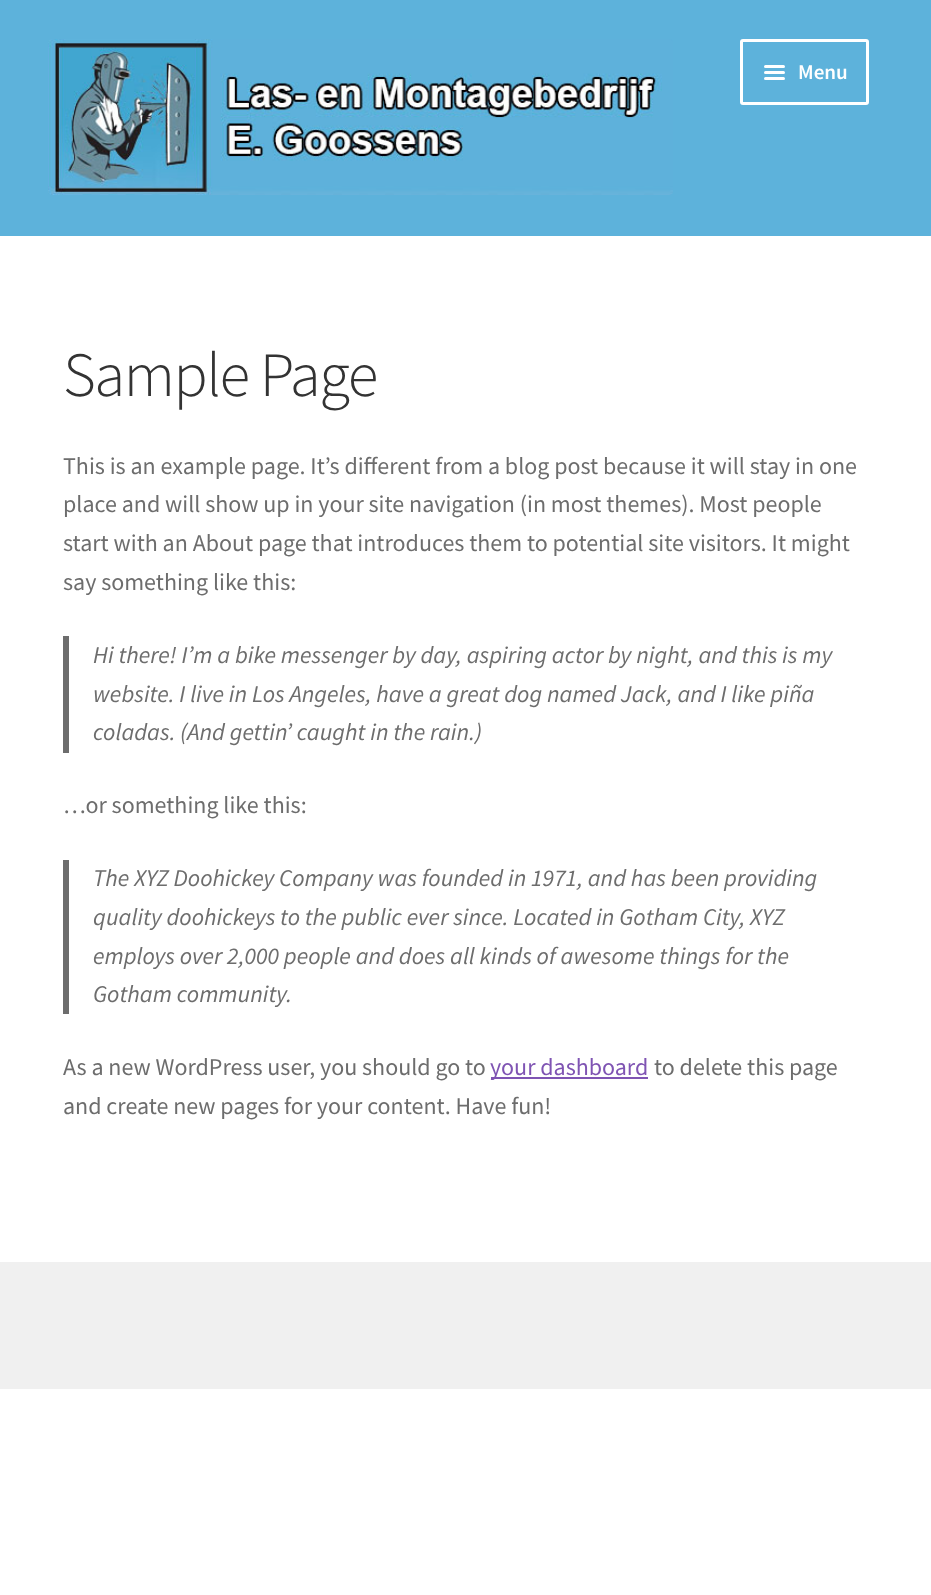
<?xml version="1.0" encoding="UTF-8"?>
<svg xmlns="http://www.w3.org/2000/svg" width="931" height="1595">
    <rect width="100%" height="100%" fill="#FFFFFF"/>
    <rect x="0" y="0" width="931" height="236" fill="#5DB2DB"/>
    <image x="48" y="39" width="625" height="156" href="img_01.png"/>
    <rect x="741.5" y="40.5" width="126" height="63" rx="1.5" fill="none" stroke="#FFFFFF" stroke-width="3"/>
    <rect x="764" y="65" width="21" height="3" rx="1.5" fill="#FFFFFF"/>
    <rect x="764" y="71" width="21" height="3" rx="1.5" fill="#FFFFFF"/>
    <text x="798" y="79" font-family="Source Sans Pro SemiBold" font-size="21" font-weight="600" fill="#FFFFFF">Menu</text>
    <rect x="764" y="77" width="21" height="3" rx="1.5" fill="#FFFFFF"/>
    <text x="63" y="396" font-family="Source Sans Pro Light" font-size="63" font-weight="300" letter-spacing="-1.5" fill="#333333">Sample Page</text>
    <text font-family="Source Sans Pro" font-size="24" fill="#6D6D6D">
        <tspan x="63" y="474">This is an example page. It’s different from a blog post because it will stay in one</tspan>
        <tspan x="63" y="512">place and will show up in your site navigation (in most themes). Most people</tspan>
        <tspan x="63" y="551">start with an About page that introduces them to potential site visitors. It might</tspan>
        <tspan x="63" y="590">say something like this:</tspan>
    </text>
    <rect x="63" y="636" width="6" height="117" fill="#6D6D6D"/>
    <text font-family="Source Sans Pro" font-size="24" font-style="italic" fill="#6D6D6D">
        <tspan x="93" y="663">Hi there! I’m a bike messenger by day, aspiring actor by night, and this is my</tspan>
        <tspan x="93" y="702">website. I live in Los Angeles, have a great dog named Jack, and I like piña</tspan>
        <tspan x="93" y="740">coladas. (And gettin’ caught in the rain.)</tspan>
    </text>
    <text x="63" y="813" font-family="Source Sans Pro" font-size="24" fill="#6D6D6D">…or something like this:</text>
    <rect x="63" y="860" width="6" height="154" fill="#6D6D6D"/>
    <text font-family="Source Sans Pro" font-size="24" font-style="italic" fill="#6D6D6D">
        <tspan x="93" y="886">The XYZ Doohickey Company was founded in 1971, and has been providing</tspan>
        <tspan x="93" y="925">quality doohickeys to the public ever since. Located in Gotham City, XYZ</tspan>
        <tspan x="93" y="964">employs over 2,000 people and does all kinds of awesome things for the</tspan>
        <tspan x="93" y="1002">Gotham community.</tspan>
    </text>
    <text x="63" y="1075" font-family="Source Sans Pro" font-size="24" fill="#6D6D6D">As a new WordPress user, you should go to</text>
    <rect x="491" y="1077" width="157" height="2" fill="#7F54B3"/>
    <text x="490" y="1075" font-family="Source Sans Pro" font-size="24" fill="#7F54B3">your dashboard</text>
    <text x="654" y="1075" font-family="Source Sans Pro" font-size="24" fill="#6D6D6D">to delete this page</text>
    <text x="63" y="1114" font-family="Source Sans Pro" font-size="24" fill="#6D6D6D">and create new pages for your content. Have fun!</text>
    <rect x="0" y="1262" width="931" height="127" fill="#F0F0F0"/>
</svg>
